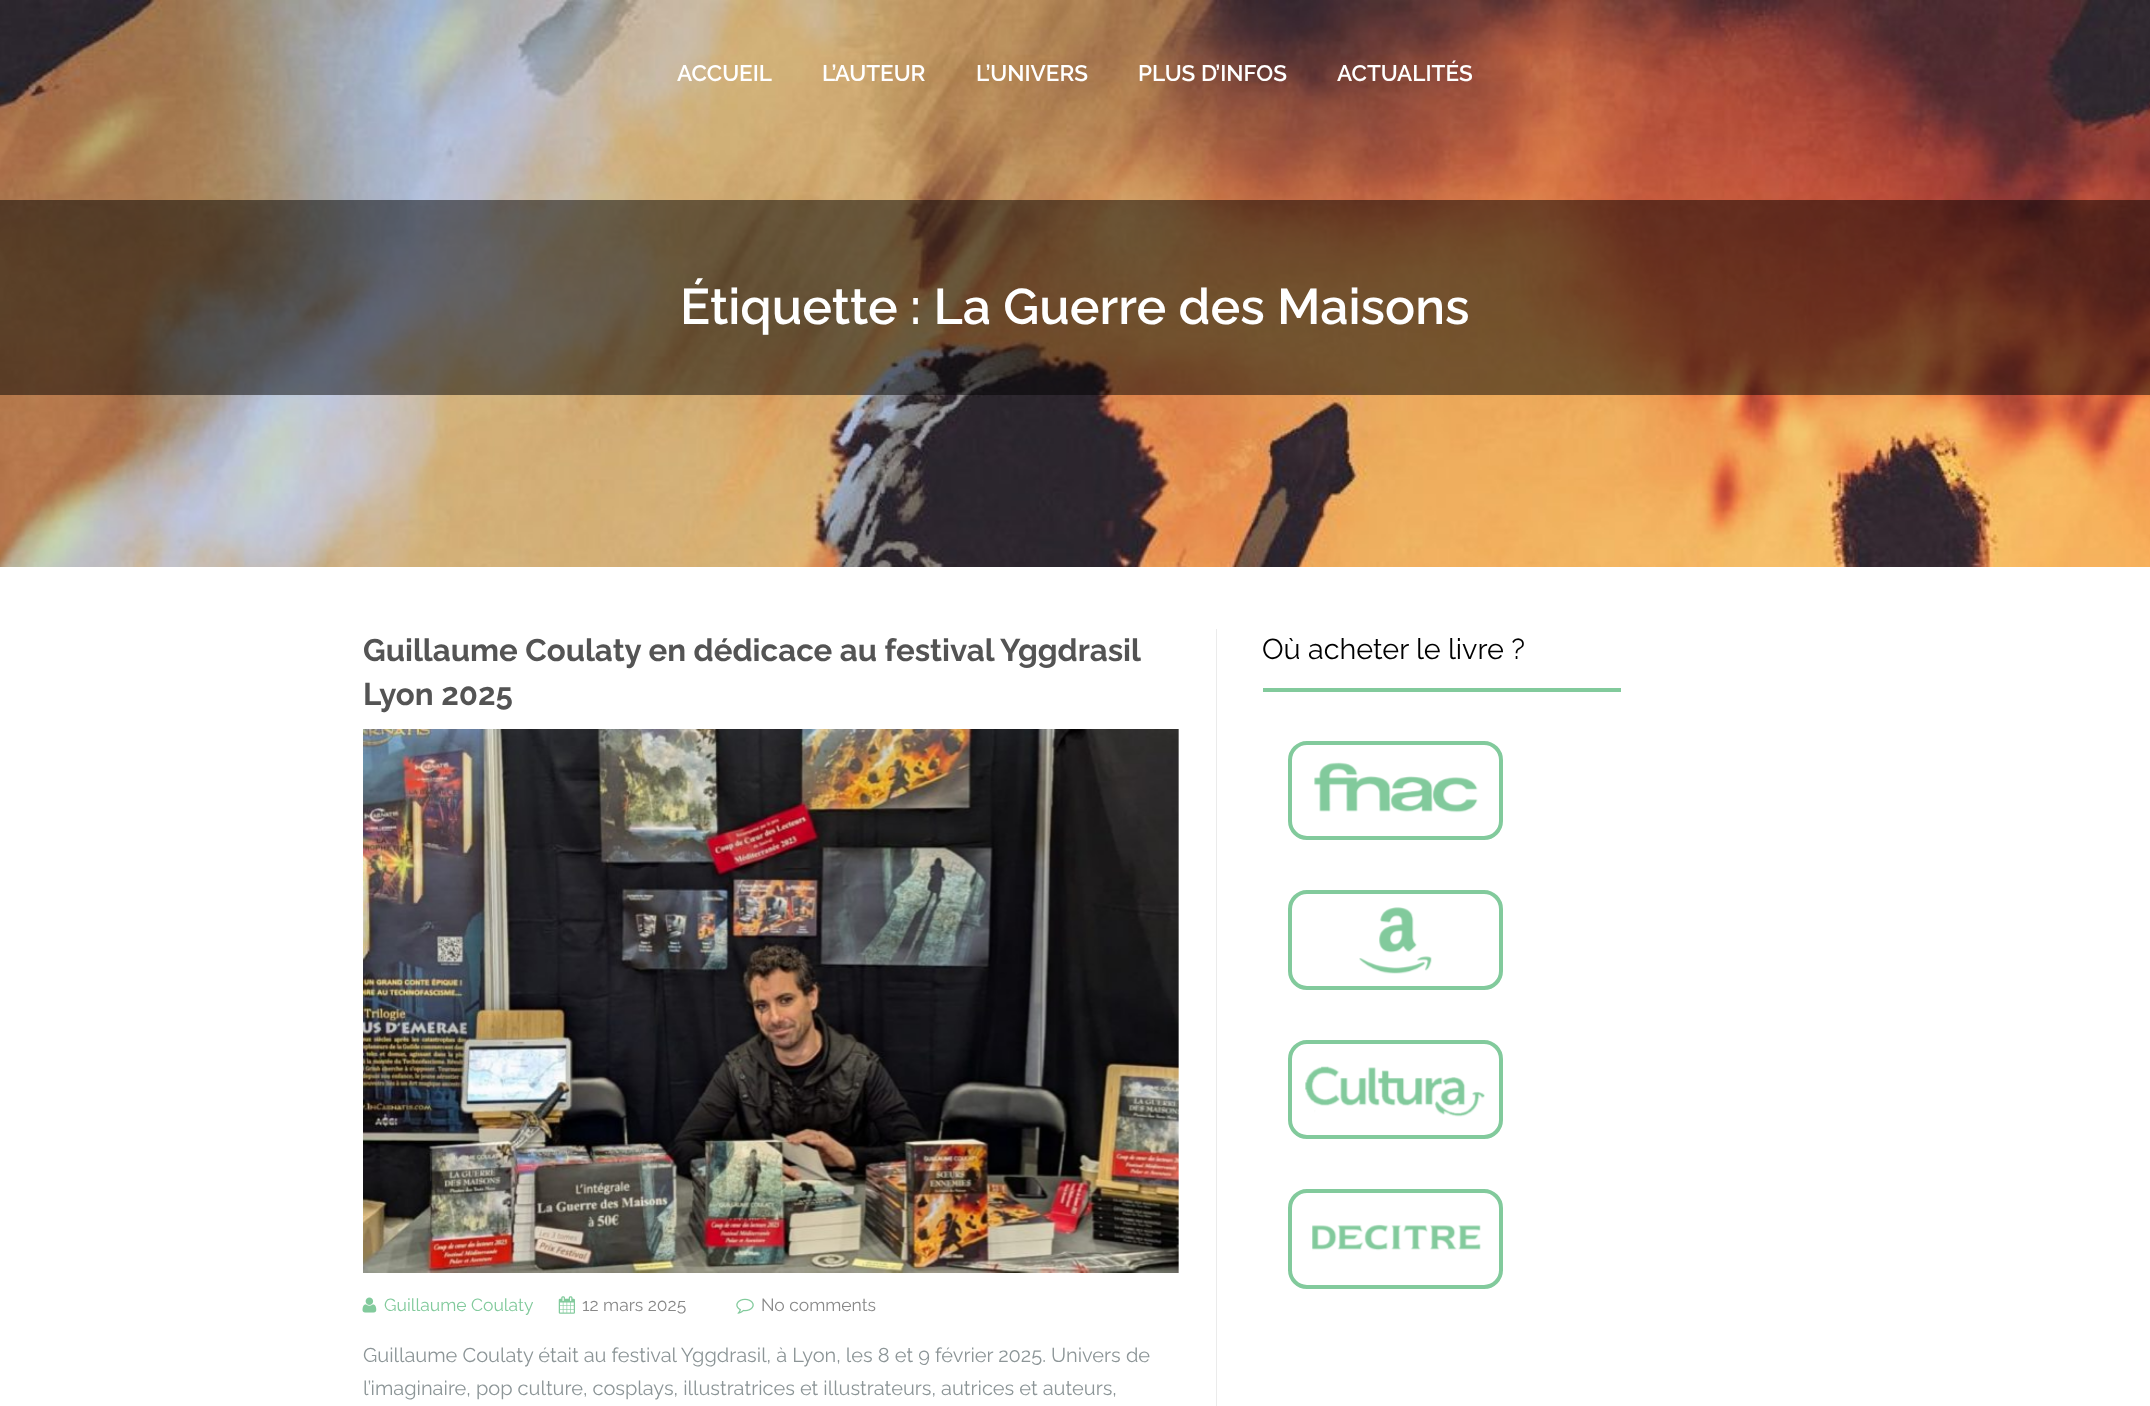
<?xml version="1.0" encoding="UTF-8"?>
<svg xmlns="http://www.w3.org/2000/svg" width="2150" height="1406">
    <rect width="100%" height="100%" fill="#FFFFFF"/>
    <image x="0" y="0" width="2150" height="567" href="img_01.png"/>
    <text x="677" y="81" font-family="Raleway" font-size="22.5" font-weight="600" fill="#FFFFFF">ACCUEIL</text>
    <text x="822" y="81" font-family="Raleway" font-size="22.5" font-weight="600" fill="#FFFFFF">L’AUTEUR</text>
    <text x="976" y="81" font-family="Raleway" font-size="22.5" font-weight="600" fill="#FFFFFF">L’UNIVERS</text>
    <text x="1138" y="81" font-family="Raleway" font-size="22.5" font-weight="600" fill="#FFFFFF">PLUS D’INFOS</text>
    <text x="1337" y="81" font-family="Raleway" font-size="22.5" font-weight="600" fill="#FFFFFF">ACTUALITÉS</text>
    <rect x="0" y="200" width="2150" height="195" fill="#000000" fill-opacity="0.5"/>
    <text x="680" y="324" font-family="Raleway" font-size="50" font-weight="600" fill="#FFFFFF">Étiquette : La Guerre des Maisons</text>
    <text font-family="Raleway" font-size="31.25" font-weight="700" fill="#545454">
        <tspan x="363" y="661">Guillaume Coulaty en dédicace au festival Yggdrasil</tspan>
        <tspan x="363" y="705">Lyon 2025</tspan>
    </text>
    <image x="363" y="729" width="816" height="544" href="img_02.png"/>
    <image x="362" y="1297" width="15" height="16" href="img_03.png"/>
    <text x="384" y="1311" font-family="Raleway" font-size="17.5" fill="#82CA9C">Guillaume Coulaty</text>
    <image x="558" y="1296" width="17" height="18" href="img_04.png"/>
    <text x="582" y="1311" font-family="Raleway" font-size="17.5" fill="#888888">12 mars 2025</text>
    <image x="736" y="1298" width="18" height="16" href="img_05.png"/>
    <text x="761" y="1311" font-family="Raleway" font-size="17.5" fill="#888888">No comments</text>
    <text font-family="Raleway" font-size="20" fill="#8C9597">
        <tspan x="363" y="1362">Guillaume Coulaty était au festival Yggdrasil, à Lyon, les 8 et 9 février 2025. Univers de</tspan>
        <tspan x="363" y="1395">l’imaginaire, pop culture, cosplays, illustratrices et illustrateurs, autrices et auteurs,</tspan>
    </text>
    <rect x="1216" y="629" width="1" height="777" fill="#EBEBEB"/>
    <rect x="1263" y="688" width="358" height="4" fill="#82CA9C"/>
    <text x="1262" y="659" font-family="Raleway" font-size="28.75" fill="#000000">Où acheter le livre ?</text>
    <rect x="1290" y="743" width="211" height="95" rx="17" fill="none" stroke="#82CA9C" stroke-width="4"/>
    <image x="1314" y="762" width="164" height="51" href="img_06.png"/>
    <rect x="1290" y="892" width="211" height="96" rx="17" fill="none" stroke="#82CA9C" stroke-width="4"/>
    <image x="1359" y="907" width="73" height="67" href="img_07.png"/>
    <rect x="1290" y="1042" width="211" height="95" rx="17" fill="none" stroke="#82CA9C" stroke-width="4"/>
    <image x="1305" y="1066" width="180" height="51" href="img_08.png"/>
    <rect x="1290" y="1191" width="211" height="96" rx="17" fill="none" stroke="#82CA9C" stroke-width="4"/>
    <image x="1312" y="1224" width="169" height="27" href="img_09.png"/>
</svg>
